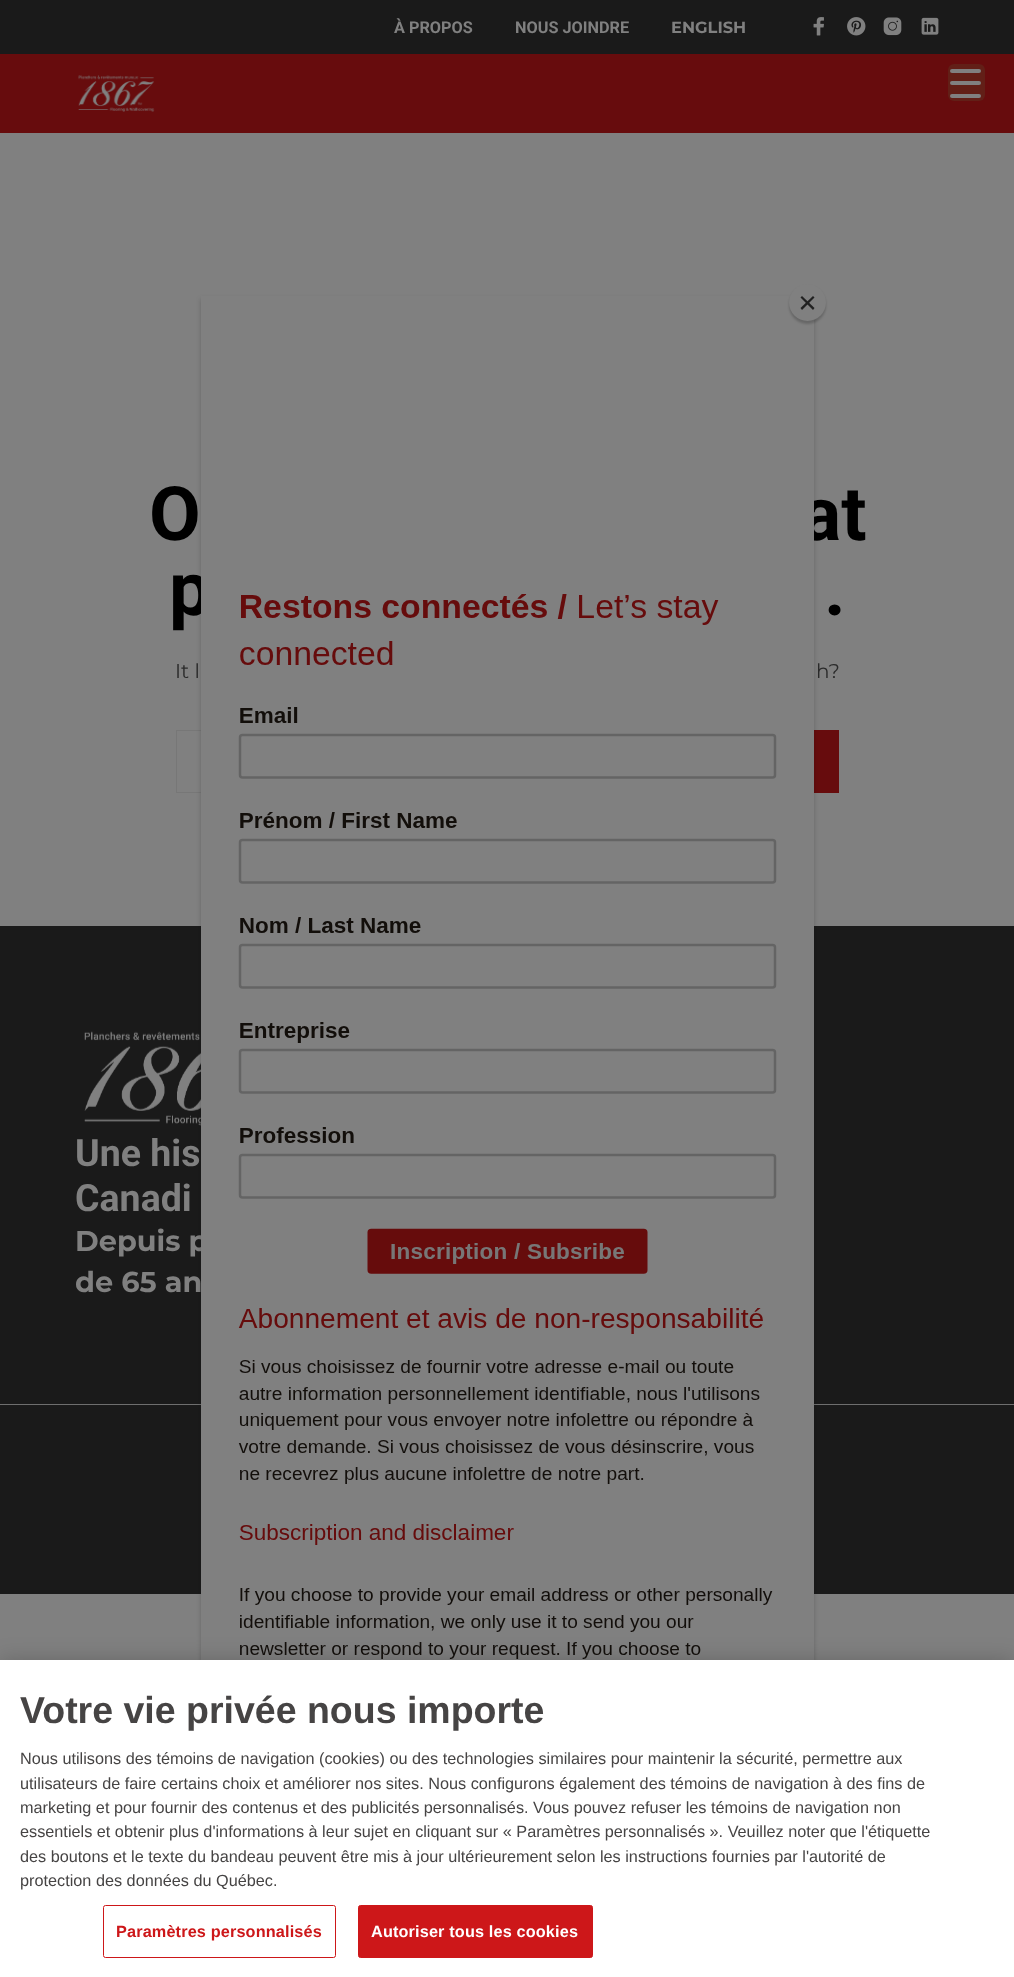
<?xml version="1.0" encoding="UTF-8"?>
<svg xmlns="http://www.w3.org/2000/svg" width="1014" height="1977">
    <defs>
        <clipPath id="clip1"><path d="M 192 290 H 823 V 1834 H 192 Z M 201 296 H 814 V 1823 H 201 Z" clip-rule="evenodd"/></clipPath>
        <filter id="blur1" x="-50%" y="-200%" width="200%" height="500%"><feGaussianBlur stdDeviation="2.5"/></filter>
        <filter id="blur2" x="-50%" y="-200%" width="200%" height="500%"><feGaussianBlur stdDeviation="1"/></filter>
        <filter id="blur3" x="-50%" y="-200%" width="200%" height="500%"><feGaussianBlur stdDeviation="11"/></filter>
    </defs>
    <rect width="100%" height="100%" fill="#808080"/>
    <rect x="0" y="0" width="1014" height="54" fill="#1A1A1A"/>
    <text x="394" y="33" font-family="Roboto" font-size="16.25" font-weight="700" fill="#808080">À PROPOS</text>
    <text x="515" y="33" font-family="Roboto" font-size="16.25" font-weight="700" fill="#808080">NOUS JOINDRE</text>
    <text x="671" y="33" font-family="Montserrat" font-size="16.25" font-weight="700" fill="#808080">ENGLISH</text>
    <image x="813" y="17" width="11" height="19" href="img_01.png"/>
    <image x="847" y="17" width="19" height="19" href="img_02.png"/>
    <image x="883" y="17" width="19" height="19" href="img_03.png"/>
    <image x="921" y="17" width="18" height="18" href="img_04.png"/>
    <rect x="0" y="54" width="1014" height="79" fill="#670C0D"/>
    <image x="78" y="75" width="77" height="37" href="img_05.png"/>
    <text x="149" y="540" font-family="Roboto" font-size="75" font-weight="700" fill="#000000">O</text>
    <text x="801" y="540" font-family="Roboto" font-size="75" font-weight="700" fill="#000000">at</text>
    <text x="169" y="615" font-family="Roboto" font-size="75" font-weight="700" fill="#000000">p</text>
    <text x="824" y="615" font-family="Roboto" font-size="75" font-weight="700" fill="#000000">.</text>
    <text x="175" y="678" font-family="Montserrat" font-size="20" fill="#2A2A2A">It l</text>
    <text x="816" y="678" font-family="Montserrat" font-size="20" fill="#2A2A2A">h?</text>
    <rect x="176.5" y="730.5" width="374" height="62" fill="none" stroke="#777777"/>
    <rect x="814" y="730" width="25" height="63" fill="#670C0D"/>
    <rect x="0" y="926" width="1014" height="668" fill="#1A1A1A"/>
    <rect x="0" y="1404" width="1014" height="1" fill="#6F6F6F"/>
    <image x="84" y="1031" width="117" height="95" href="img_06.png"/>
    <text font-family="Roboto" font-size="37.5" font-weight="700" fill="#808080">
        <tspan x="75" y="1166">Une his</tspan>
        <tspan x="75" y="1211">Canadi</tspan>
    </text>
    <text font-family="Montserrat" font-size="28.75" font-weight="700" fill="#808080">
        <tspan x="75" y="1251">Depuis p</tspan>
        <tspan x="75" y="1292">de 65 an</tspan>
    </text>
    <rect x="948" y="64" width="37" height="37" rx="6" fill="#621F17"/>
    <rect x="950" y="81" width="31" height="4" rx="2" fill="#808080"/>
    <rect x="950" y="69" width="31" height="4" rx="2" fill="#808080"/>
    <rect x="950" y="94" width="31" height="4" rx="2" fill="#808080"/>
    <g clip-path="url(#clip1)">
        <rect x="201" y="299" width="613" height="1526" fill="#000000" fill-opacity="0.2" filter="url(#blur1)"/>
    </g>
    <image x="201" y="299" width="613" height="1361" href="img_07.png"/>
    <rect x="789" y="286" width="37" height="38" rx="18.5" fill="#000000" fill-opacity="0.2" filter="url(#blur2)"/>
    <circle cx="807.5" cy="302.5" r="18.5" fill="#808080"/>
    <path d="M 813 296 L 814.5 297.5 L 802 310 L 800.5 308 Z" fill="#212121"/>
    <path d="M 800.5 297.5 L 802 296 L 814.5 308 L 813 310 Z" fill="#212121"/>
    <rect x="0" y="1660" width="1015" height="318" fill="#000000" fill-opacity="0.2" filter="url(#blur3)"/>
    <rect x="0" y="1660" width="1014" height="317" fill="#FFFFFF"/>
    <text x="20" y="1723" font-family="Liberation Sans" font-size="37.5" font-weight="700" fill="#464444">Votre vie privée nous importe</text>
    <text font-family="Liberation Sans" font-size="16.25" fill="#464444">
        <tspan x="20" y="1764">Nous utilisons des témoins de navigation (cookies) ou des technologies similaires pour maintenir la sécurité, permettre aux</tspan>
        <tspan x="20" y="1789">utilisateurs de faire certains choix et améliorer nos sites. Nous configurons également des témoins de navigation à des fins de</tspan>
        <tspan x="20" y="1813">marketing et pour fournir des contenus et des publicités personnalisés. Vous pouvez refuser les témoins de navigation non</tspan>
        <tspan x="20" y="1837">essentiels et obtenir plus d'informations à leur sujet en cliquant sur « Paramètres personnalisés ». Veuillez noter que l'étiquette</tspan>
        <tspan x="20" y="1862">des boutons et le texte du bandeau peuvent être mis à jour ultérieurement selon les instructions fournies par l'autorité de</tspan>
        <tspan x="20" y="1886">protection des données du Québec.</tspan>
    </text>
    <rect x="103.5" y="1905.5" width="232" height="52" rx="2" fill="none" stroke="#CD1719"/>
    <text x="116" y="1937" font-family="Liberation Sans" font-size="16.25" font-weight="700" letter-spacing="0.15" fill="#CD1719">Paramètres personnalisés</text>
    <rect x="358.5" y="1905.5" width="234" height="52" rx="2" fill="#CD1719" stroke="#CD1719"/>
    <text x="371" y="1937" font-family="Liberation Sans" font-size="16.25" font-weight="700" letter-spacing="0.15" fill="#FFFFFF">Autoriser tous les cookies</text>
</svg>
